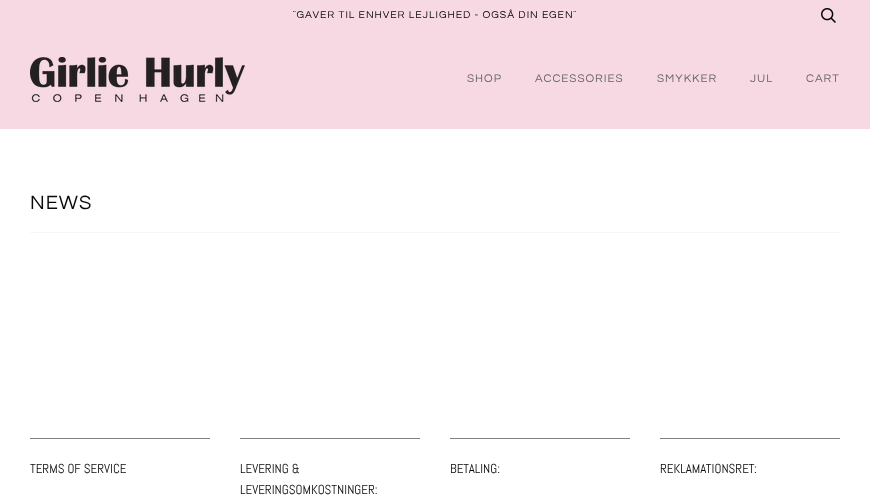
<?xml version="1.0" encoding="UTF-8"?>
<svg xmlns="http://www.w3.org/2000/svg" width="870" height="497">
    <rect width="100%" height="100%" fill="#FFFFFF"/>
    <rect x="0" y="0" width="870" height="129" fill="#F7D9E3"/>
    <text x="293" y="18" font-family="Questrial" font-size="10.4" letter-spacing="1" fill="#090909">¨GAVER TIL ENHVER LEJLIGHED - OGSÅ DIN EGEN¨</text>
    <image x="821" y="8" width="15" height="15" href="img_01.png"/>
    <image x="30" y="57" width="215" height="45" href="img_02.png"/>
    <text x="467" y="82" font-family="Questrial" font-size="11.5" letter-spacing="1" fill="#656565">SHOP</text>
    <text x="535" y="82" font-family="Questrial" font-size="11.5" letter-spacing="1" fill="#656565">ACCESSORIES</text>
    <text x="657" y="82" font-family="Questrial" font-size="11.5" letter-spacing="1" fill="#656565">SMYKKER</text>
    <text x="750" y="82" font-family="Questrial" font-size="11.5" letter-spacing="1" fill="#656565">JUL</text>
    <text x="806" y="82" font-family="Questrial" font-size="11.5" letter-spacing="1" fill="#656565">CART</text>
    <text x="30" y="209" font-family="Questrial" font-size="20" letter-spacing="1" fill="#090909">NEWS</text>
    <rect x="30" y="232" width="810" height="1" fill="#F7F7F7"/>
    <rect x="30" y="438" width="180" height="1" fill="#828282"/>
    <text x="30" y="473" font-family="Abel" font-size="13" fill="#090909">TERMS OF SERVICE</text>
    <rect x="240" y="438" width="180" height="1" fill="#828282"/>
    <text font-family="Abel" font-size="13" fill="#090909">
        <tspan x="240" y="473">LEVERING &amp;</tspan>
        <tspan x="240" y="494">LEVERINGSOMKOSTNINGER:</tspan>
    </text>
    <rect x="450" y="438" width="180" height="1" fill="#828282"/>
    <text x="450" y="473" font-family="Abel" font-size="13" fill="#090909">BETALING:</text>
    <rect x="660" y="438" width="180" height="1" fill="#828282"/>
    <text x="660" y="473" font-family="Abel" font-size="13" fill="#090909">REKLAMATIONSRET:</text>
</svg>
